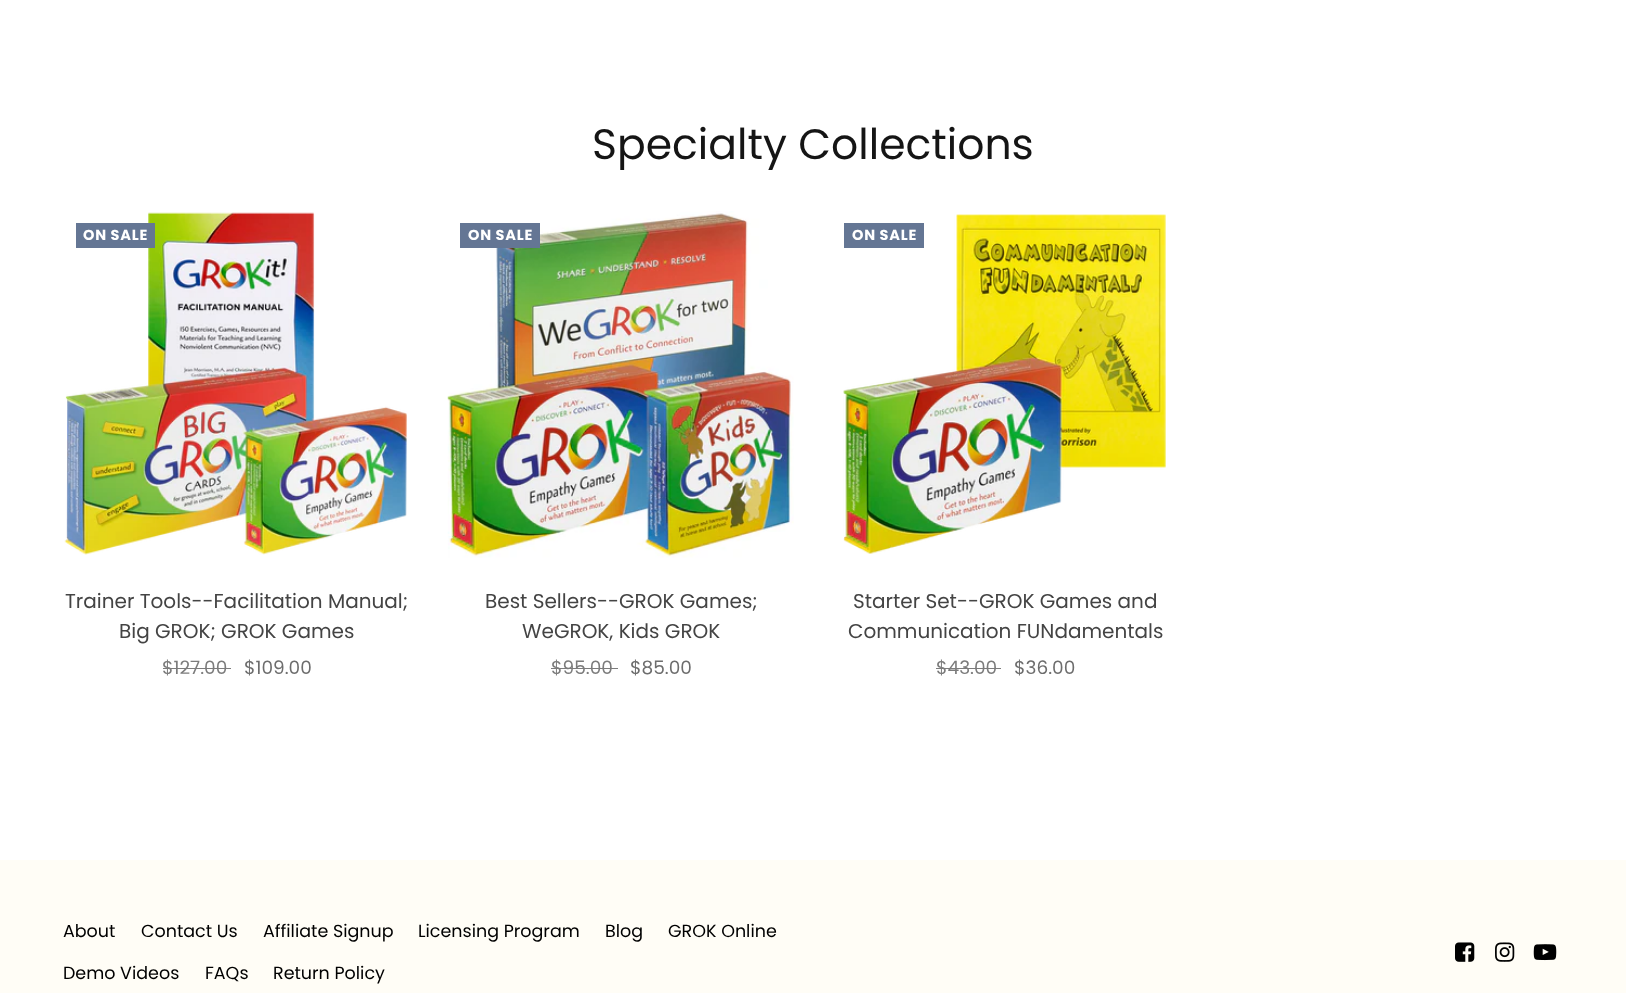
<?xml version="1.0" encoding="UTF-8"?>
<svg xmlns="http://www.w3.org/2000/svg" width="1626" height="993">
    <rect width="100%" height="100%" fill="#FFFFFF"/>
    <text x="592" y="159" font-family="Poppins" font-size="42.5" fill="#151515">Specialty Collections</text>
    <image x="64" y="212" width="343" height="343" href="img_01.png"/>
    <rect x="76" y="223" width="79" height="25" fill="#647694"/>
    <text x="83" y="240" font-family="Poppins" font-size="14.5" font-weight="700" letter-spacing="0.75" fill="#FFFFFF">ON SALE</text>
    <text x="65" y="608" font-family="Poppins" font-size="20" fill="#444444">Trainer Tools--Facilitation Manual;</text>
    <text x="119" y="638" font-family="Poppins" font-size="20" fill="#444444">Big GROK; GROK Games</text>
    <text x="162" y="674" font-family="Poppins" font-size="18.5" fill="#7C7C7C">$127.00</text>
    <rect x="163" y="668" width="68" height="1" fill="#7C7C7C"/>
    <text x="244" y="674" font-family="Poppins" font-size="18.5" fill="#6D6D6D">$109.00</text>
    <image x="447" y="211" width="347" height="347" href="img_02.png"/>
    <rect x="460" y="223" width="80" height="25" fill="#647694"/>
    <text x="468" y="240" font-family="Poppins" font-size="14.5" font-weight="700" letter-spacing="0.75" fill="#FFFFFF">ON SALE</text>
    <text x="485" y="608" font-family="Poppins" font-size="20" fill="#444444">Best Sellers--GROK Games;</text>
    <text x="522" y="638" font-family="Poppins" font-size="20" fill="#444444">WeGROK, Kids GROK</text>
    <text x="551" y="674" font-family="Poppins" font-size="18.5" fill="#7C7C7C">$95.00</text>
    <rect x="551" y="668" width="67" height="1" fill="#7C7C7C"/>
    <text x="630" y="674" font-family="Poppins" font-size="18.5" fill="#6D6D6D">$85.00</text>
    <image x="843" y="214" width="323" height="340" href="img_03.png"/>
    <rect x="844" y="223" width="80" height="25" fill="#647694"/>
    <text x="852" y="240" font-family="Poppins" font-size="14.5" font-weight="700" letter-spacing="0.75" fill="#FFFFFF">ON SALE</text>
    <text x="853" y="608" font-family="Poppins" font-size="20" fill="#444444">Starter Set--GROK Games and</text>
    <text x="848" y="638" font-family="Poppins" font-size="20" fill="#444444">Communication FUNdamentals</text>
    <text x="936" y="674" font-family="Poppins" font-size="18.5" fill="#7C7C7C">$43.00</text>
    <rect x="936" y="668" width="65" height="1" fill="#7C7C7C"/>
    <text x="1014" y="674" font-family="Poppins" font-size="18.5" fill="#6D6D6D">$36.00</text>
    <rect x="0" y="860" width="1626" height="133" fill="#FFFDF6"/>
    <text x="63" y="937" font-family="Poppins" font-size="17.5" fill="#000000">About</text>
    <text x="141" y="937" font-family="Poppins" font-size="17.5" fill="#000000">Contact Us</text>
    <text x="263" y="937" font-family="Poppins" font-size="17.5" fill="#000000">Affiliate Signup</text>
    <text x="418" y="937" font-family="Poppins" font-size="17.5" fill="#000000">Licensing Program</text>
    <text x="605" y="937" font-family="Poppins" font-size="17.5" fill="#000000">Blog</text>
    <text x="668" y="937" font-family="Poppins" font-size="17.5" fill="#000000">GROK Online</text>
    <text x="63" y="979" font-family="Poppins" font-size="17.5" fill="#000000">Demo Videos</text>
    <text x="205" y="979" font-family="Poppins" font-size="17.5" fill="#000000">FAQs</text>
    <text x="273" y="979" font-family="Poppins" font-size="17.5" fill="#000000">Return Policy</text>
    <image x="1455" y="942" width="20" height="20" href="img_04.png"/>
    <image x="1495" y="942" width="20" height="20" href="img_05.png"/>
    <image x="1533" y="944" width="24" height="17" href="img_06.png"/>
</svg>
